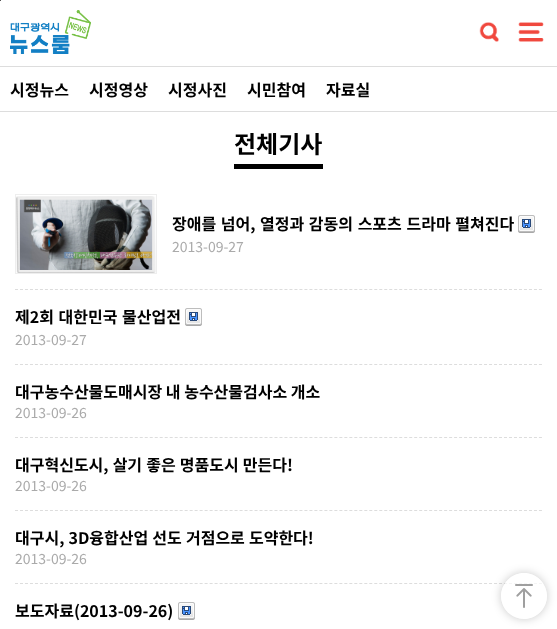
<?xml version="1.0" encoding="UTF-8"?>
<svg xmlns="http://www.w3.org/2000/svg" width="557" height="629">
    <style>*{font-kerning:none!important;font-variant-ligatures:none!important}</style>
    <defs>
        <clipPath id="clip1"><path d="M 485 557 H 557 V 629 H 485 Z M 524 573 C 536.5 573 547 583.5 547 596 C 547 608.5 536.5 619 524 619 C 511.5 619 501 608.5 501 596 C 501 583.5 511.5 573 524 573 Z" clip-rule="evenodd"/></clipPath>
        <filter id="blur1" x="-50%" y="-200%" width="200%" height="500%"><feGaussianBlur stdDeviation="5"/></filter>
    </defs>
    <rect width="100%" height="100%" fill="#FFFFFF"/>
    <rect x="0" y="0" width="1" height="1" fill="#555555"/>
    <rect x="0" y="111" width="557" height="1" fill="#DDDDDD"/>
    <image x="10" y="10" width="81" height="44" href="img_01.png"/>
    <image x="479" y="22" width="20" height="20" href="img_02.png"/>
    <image x="518" y="22" width="26" height="20" href="img_03.png"/>
    <rect x="0" y="66" width="557" height="1" fill="#DDDDDD"/>
    <text x="10" y="96" font-family="Noto Sans KR" font-size="16" font-weight="700" fill="#000000">시정뉴스</text>
    <text x="89" y="96" font-family="Noto Sans KR" font-size="16" font-weight="700" fill="#000000">시정영상</text>
    <text x="168" y="96" font-family="Noto Sans KR" font-size="16" font-weight="700" fill="#000000">시정사진</text>
    <text x="247" y="96" font-family="Noto Sans KR" font-size="16" font-weight="700" fill="#000000">시민참여</text>
    <text x="326" y="96" font-family="Noto Sans KR" font-size="16" font-weight="700" fill="#000000">자료실</text>
    <text x="234" y="153" font-family="Noto Sans KR" font-size="24" font-weight="700" fill="#000000">전체기사</text>
    <rect x="234" y="164" width="89" height="5" fill="#000000"/>
    <path d="M 15 289.5 H 542" fill="none" stroke="#DDDDDD" stroke-dasharray="3 1.99"/>
    <rect x="15.5" y="194.5" width="141" height="79" fill="none" stroke="#EEEEEE"/>
    <image x="16" y="196" width="140" height="77" href="img_04.png"/>
    <text x="172" y="230" word-spacing="1" font-family="Noto Sans KR" font-size="16" font-weight="700" fill="#000000">장애를 넘어, 열정과 감동의 스포츠 드라마 펼쳐진다</text>
    <image x="518" y="215" width="17" height="18" href="img_05.png"/>
    <text x="172" y="252" font-family="Noto Sans KR" font-size="14" fill="#AAAAAA">2013-09-27</text>
    <path d="M 15 364.5 H 542" fill="none" stroke="#DDDDDD" stroke-dasharray="3 1.99"/>
    <text x="15" y="323" word-spacing="1" font-family="Noto Sans KR" font-size="16" font-weight="700" fill="#000000">제2회 대한민국 물산업전</text>
    <image x="185" y="308" width="17" height="18" href="img_05.png"/>
    <text x="15" y="345" font-family="Noto Sans KR" font-size="14" fill="#AAAAAA">2013-09-27</text>
    <path d="M 15 437.5 H 542" fill="none" stroke="#DDDDDD" stroke-dasharray="3 1.99"/>
    <text x="15" y="398" font-family="Noto Sans KR" font-size="16" font-weight="700" fill="#000000">대구농수산물도매시장 내 농수산물검사소 개소</text>
    <text x="15" y="418" font-family="Noto Sans KR" font-size="14" fill="#AAAAAA">2013-09-26</text>
    <path d="M 15 510.5 H 542" fill="none" stroke="#DDDDDD" stroke-dasharray="3 1.99"/>
    <text x="15" y="471" word-spacing="0.5" font-family="Noto Sans KR" font-size="16" font-weight="700" fill="#000000">대구혁신도시, 살기 좋은 명품도시 만든다!</text>
    <text x="15" y="491" font-family="Noto Sans KR" font-size="14" fill="#AAAAAA">2013-09-26</text>
    <path d="M 15 583.5 H 542" fill="none" stroke="#DDDDDD" stroke-dasharray="3 1.99"/>
    <text x="15" y="544" word-spacing="0.5" font-family="Noto Sans KR" font-size="16" font-weight="700" fill="#000000">대구시, 3D융합산업 선도 거점으로 도약한다!</text>
    <text x="15" y="564" font-family="Noto Sans KR" font-size="14" fill="#AAAAAA">2013-09-26</text>
    <text x="15" y="617" font-family="Noto Sans KR" font-size="16" font-weight="700" fill="#000000">보도자료(2013-09-26)</text>
    <image x="178" y="602" width="17" height="18" href="img_05.png"/>
    <g clip-path="url(#clip1)">
        <rect x="501" y="573" width="46" height="46" rx="23" fill="#000000" fill-opacity="0.21" filter="url(#blur1)"/>
    </g>
    <circle cx="524" cy="596" r="23" fill="#FFFFFF" fill-opacity="0.7"/>
    <image x="515" y="584" width="18" height="24" href="img_06.png"/>
</svg>
